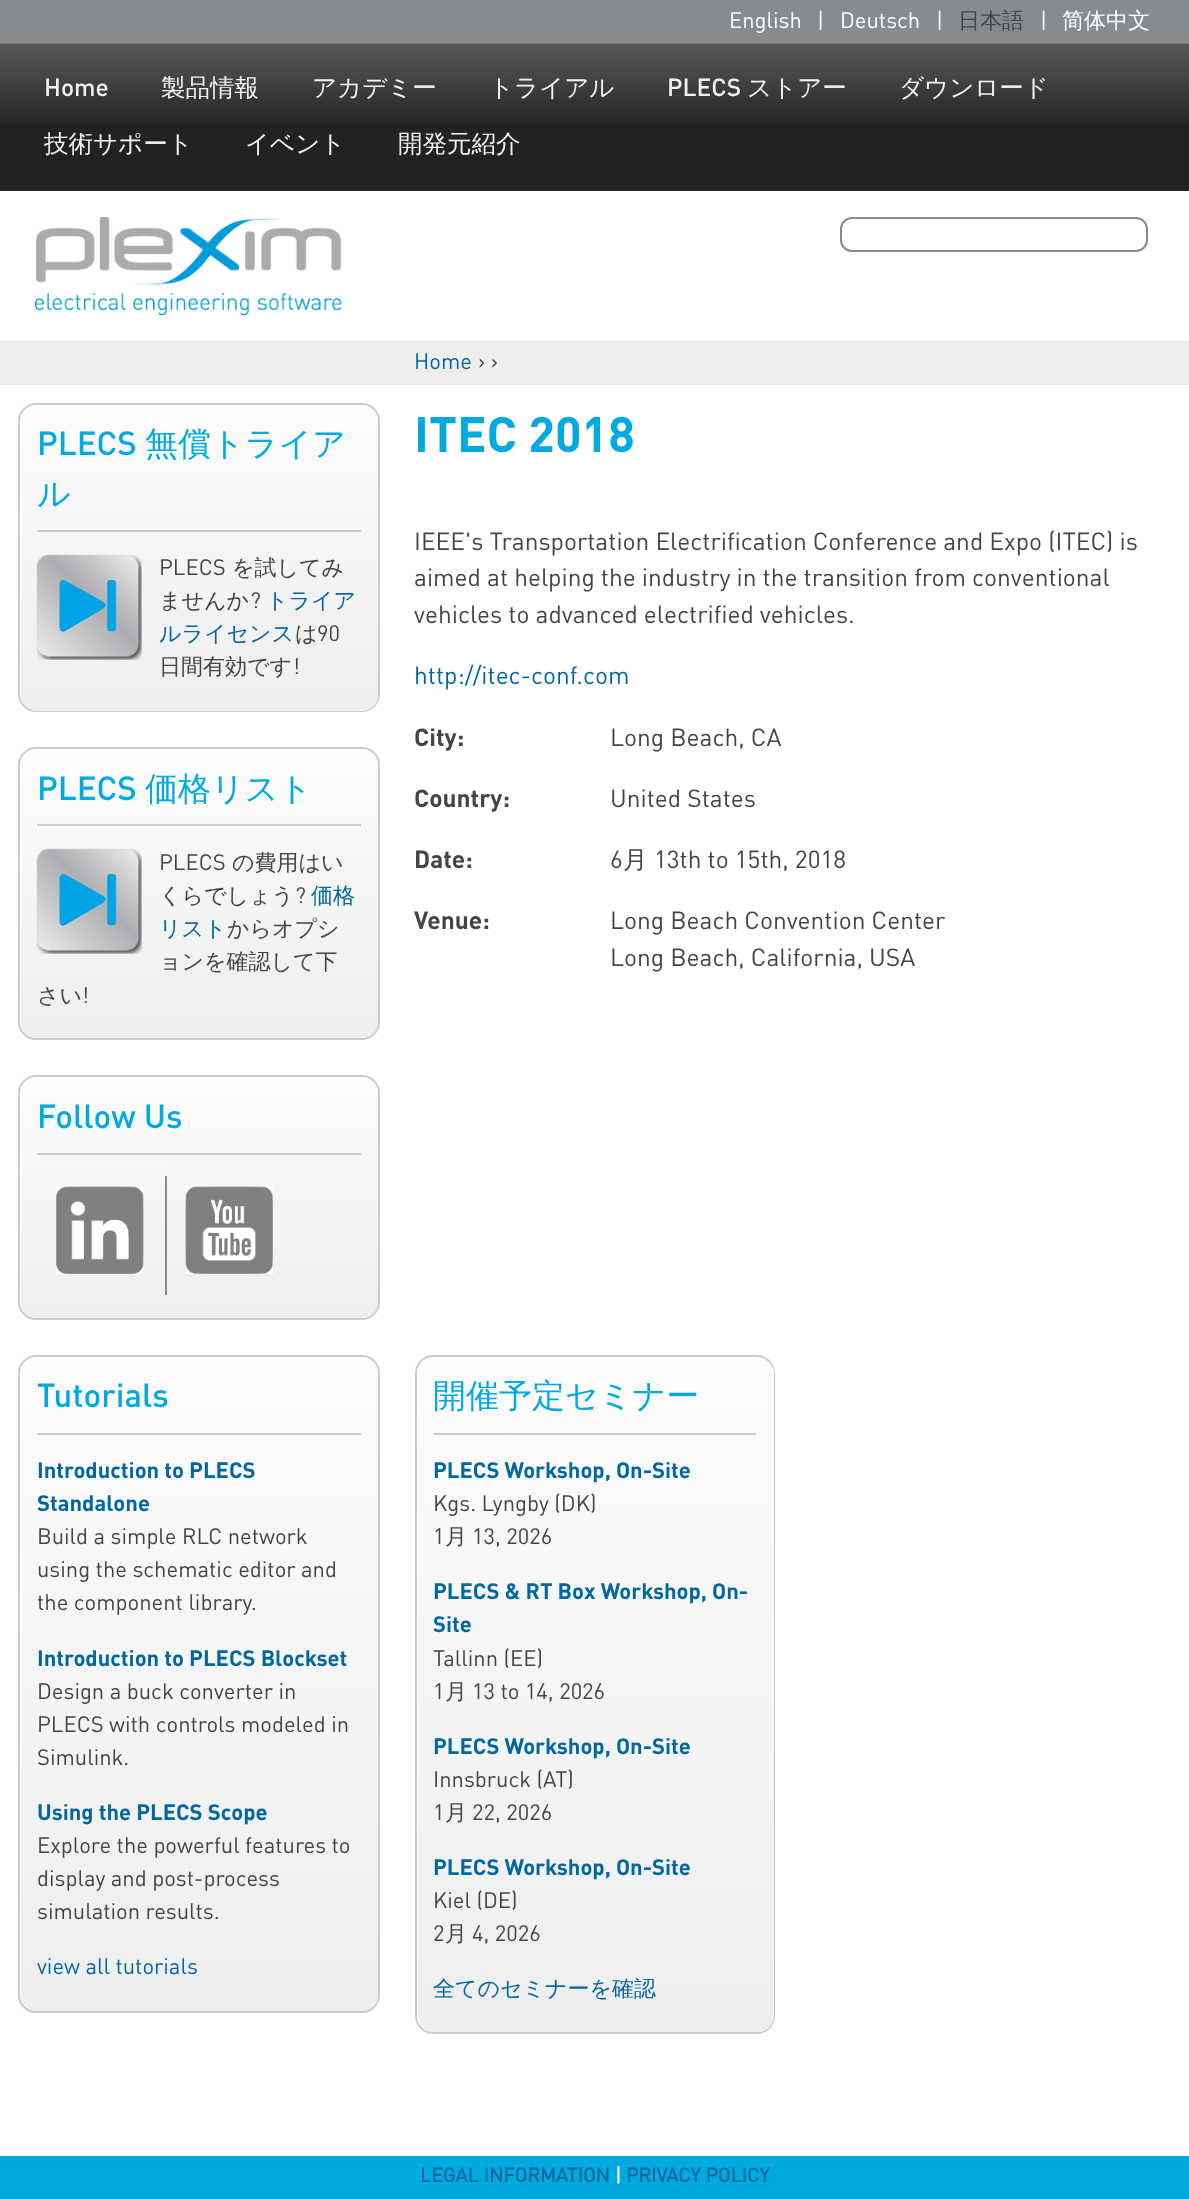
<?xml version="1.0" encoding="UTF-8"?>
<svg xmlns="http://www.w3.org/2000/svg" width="1189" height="2199">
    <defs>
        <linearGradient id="g1" gradientUnits="userSpaceOnUse" x1="199" y1="406" x2="200" y2="711"><stop offset="0" stop-color="#FCFCFC"/><stop offset="1" stop-color="#EEEEEE"/></linearGradient>
        <linearGradient id="g2" gradientUnits="userSpaceOnUse" x1="199" y1="751" x2="200" y2="1038"><stop offset="0" stop-color="#FCFCFC"/><stop offset="1" stop-color="#EEEEEE"/></linearGradient>
        <linearGradient id="g3" gradientUnits="userSpaceOnUse" x1="199" y1="1078" x2="200" y2="1318"><stop offset="0" stop-color="#FCFCFC"/><stop offset="1" stop-color="#EEEEEE"/></linearGradient>
        <linearGradient id="g4" gradientUnits="userSpaceOnUse" x1="199" y1="1358" x2="200" y2="2011"><stop offset="0" stop-color="#FCFCFC"/><stop offset="1" stop-color="#EEEEEE"/></linearGradient>
        <linearGradient id="g5" gradientUnits="userSpaceOnUse" x1="596" y1="1358" x2="596" y2="2032"><stop offset="0" stop-color="#FCFCFC"/><stop offset="1" stop-color="#EEEEEE"/></linearGradient>
    </defs>
    <rect width="100%" height="100%" fill="#FFFFFF"/>
    <rect x="0" y="0" width="1189" height="44" fill="#888B8D"/>
    <text x="729" y="28" font-family="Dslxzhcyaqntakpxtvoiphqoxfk" font-size="22" fill="#FFFFFF">English</text>
    <text x="817" y="28" font-family="Dslxzhcyaqntakpxtvoiphqoxfk" font-size="22" fill="#FFFFFF">|</text>
    <text x="840" y="28" font-family="Dslxzhcyaqntakpxtvoiphqoxfk" font-size="22" fill="#FFFFFF">Deutsch</text>
    <text x="936" y="28" font-family="Dslxzhcyaqntakpxtvoiphqoxfk" font-size="22" fill="#FFFFFF">|</text>
    <text x="958" y="28" font-family="WenQuanYi Zen Hei" font-size="22" font-weight="500" fill="#444444">日本語</text>
    <text x="1040" y="28" font-family="Dslxzhcyaqntakpxtvoiphqoxfk" font-size="22" fill="#FFFFFF">|</text>
    <text x="1062" y="28" font-family="WenQuanYi Zen Hei" font-size="22" font-weight="500" fill="#FFFFFF">简体中文</text>
    <rect x="0" y="125" width="1189" height="66" fill="#222222"/>
    <image x="0" y="43" width="1189" height="82" href="img_01.png"/>
    <text x="44" y="96" font-family="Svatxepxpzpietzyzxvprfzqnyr" font-size="24.5" font-weight="500" fill="#F1F1F1">Home</text>
    <text x="161" y="96" font-family="WenQuanYi Zen Hei" font-size="24.5" font-weight="500" fill="#F1F1F1">製品情報</text>
    <text x="312" y="96" font-family="WenQuanYi Zen Hei" font-size="24.5" font-weight="500" fill="#F1F1F1">アカデミー</text>
    <text x="489" y="96" font-family="WenQuanYi Zen Hei" font-size="24.5" font-weight="500" fill="#F1F1F1">トライアル</text>
    <text x="667" y="96" font-family="Svatxepxpzpietzyzxvprfzqnyr" font-size="24.5" font-weight="500" fill="#F1F1F1">PLECS</text>
    <text x="747" y="96" font-family="WenQuanYi Zen Hei" font-size="24.5" font-weight="500" fill="#F1F1F1">ストアー</text>
    <text x="899" y="96" font-family="WenQuanYi Zen Hei" font-size="24.5" font-weight="500" fill="#F1F1F1">ダウンロード</text>
    <text x="44" y="152" font-family="WenQuanYi Zen Hei" font-size="24.5" font-weight="500" fill="#F1F1F1">技術サポート</text>
    <text x="245" y="152" font-family="WenQuanYi Zen Hei" font-size="24.5" font-weight="500" fill="#F1F1F1">イベント</text>
    <text x="398" y="152" font-family="WenQuanYi Zen Hei" font-size="24.5" font-weight="500" fill="#F1F1F1">開発元紹介</text>
    <image x="35" y="217" width="307" height="98" href="img_02.png"/>
    <rect x="841" y="218" width="306" height="33" rx="11" fill="none" stroke="#888B8D" stroke-width="2"/>
    <rect x="0" y="341" width="1189" height="44" fill="#EEEEEE"/>
    <text x="414" y="369" font-family="Dslxzhcyaqntakpxtvoiphqoxfk" font-size="22" fill="#0067A0">Home</text>
    <text x="478" y="369" font-family="Dslxzhcyaqntakpxtvoiphqoxfk" font-size="22" fill="#444444">› ›</text>
    <rect x="19" y="404" width="360" height="307" rx="17" fill="none" stroke="#CCCCCC" stroke-width="2"/>
    <rect x="21" y="406" width="357" height="305" rx="16" fill="url(#g1)"/>
    <rect x="37" y="530" width="324" height="2" fill="#CCCCCC"/>
    <text x="37" y="455" font-family="Svatxepxpzpietzyzxvprfzqnyr" font-size="33" font-weight="500" fill="#00A9E0">PLECS</text>
    <text x="145" y="455" font-family="WenQuanYi Zen Hei" font-size="33" font-weight="500" fill="#00A9E0">無償トライア</text>
    <text x="37" y="505" font-family="WenQuanYi Zen Hei" font-size="33" font-weight="500" fill="#00A9E0">ル</text>
    <image x="36" y="554" width="106" height="106" href="img_03.png"/>
    <text x="159" y="575" font-family="Dslxzhcyaqntakpxtvoiphqoxfk" font-size="22" fill="#444444">PLECS</text>
    <text x="232" y="575" font-family="WenQuanYi Zen Hei" font-size="22" font-weight="500" fill="#444444">を試してみ</text>
    <text x="159" y="608" font-family="WenQuanYi Zen Hei" font-size="22" font-weight="500" fill="#444444">ませんか</text>
    <text x="250" y="608" font-family="Dslxzhcyaqntakpxtvoiphqoxfk" font-size="22" fill="#444444">?</text>
    <text x="266" y="608" font-family="WenQuanYi Zen Hei" font-size="22" font-weight="500" fill="#0067A0">トライア</text>
    <text x="159" y="641" font-family="WenQuanYi Zen Hei" font-size="22" font-weight="500" fill="#0067A0">ルライセンス</text>
    <text x="295" y="641" font-family="WenQuanYi Zen Hei" font-size="22" font-weight="500" fill="#444444">は</text>
    <text x="317" y="641" font-family="Dslxzhcyaqntakpxtvoiphqoxfk" font-size="22" fill="#444444">90</text>
    <text x="159" y="674" font-family="WenQuanYi Zen Hei" font-size="22" font-weight="500" fill="#444444">日間有効です</text>
    <text x="293" y="674" font-family="Dslxzhcyaqntakpxtvoiphqoxfk" font-size="22" fill="#444444">!</text>
    <rect x="19" y="748" width="360" height="291" rx="17" fill="none" stroke="#CCCCCC" stroke-width="2"/>
    <rect x="21" y="751" width="357" height="287" rx="16" fill="url(#g2)"/>
    <rect x="37" y="824" width="324" height="2" fill="#CCCCCC"/>
    <text x="37" y="800" font-family="Svatxepxpzpietzyzxvprfzqnyr" font-size="33" font-weight="500" fill="#00A9E0">PLECS</text>
    <text x="145" y="800" font-family="WenQuanYi Zen Hei" font-size="33" font-weight="500" fill="#00A9E0">価格リスト</text>
    <image x="36" y="848" width="106" height="106" href="img_04.png"/>
    <text x="159" y="870" font-family="Dslxzhcyaqntakpxtvoiphqoxfk" font-size="22" fill="#444444">PLECS</text>
    <text x="232" y="870" font-family="WenQuanYi Zen Hei" font-size="22" font-weight="500" fill="#444444">の費用はい</text>
    <text x="159" y="903" font-family="WenQuanYi Zen Hei" font-size="22" font-weight="500" fill="#444444">くらでしょう</text>
    <text x="295" y="903" font-family="Dslxzhcyaqntakpxtvoiphqoxfk" font-size="22" fill="#444444">?</text>
    <text x="311" y="903" font-family="WenQuanYi Zen Hei" font-size="22" font-weight="500" fill="#0067A0">価格</text>
    <text x="159" y="936" font-family="WenQuanYi Zen Hei" font-size="22" font-weight="500" fill="#0067A0">リスト</text>
    <text x="227" y="936" font-family="WenQuanYi Zen Hei" font-size="22" font-weight="500" fill="#444444">からオプシ</text>
    <text x="159" y="969" font-family="WenQuanYi Zen Hei" font-size="22" font-weight="500" fill="#444444">ョンを確認して下</text>
    <text x="37" y="1003" font-family="WenQuanYi Zen Hei" font-size="22" font-weight="500" fill="#444444">さい</text>
    <text x="82" y="1003" font-family="Dslxzhcyaqntakpxtvoiphqoxfk" font-size="22" fill="#444444">!</text>
    <rect x="19" y="1076" width="360" height="243" rx="17" fill="none" stroke="#CCCCCC" stroke-width="2"/>
    <rect x="21" y="1078" width="357" height="240" rx="16" fill="url(#g3)"/>
    <rect x="37" y="1153" width="324" height="2" fill="#CCCCCC"/>
    <text x="37" y="1128" font-family="Svatxepxpzpietzyzxvprfzqnyr" font-size="33" font-weight="500" fill="#00A9E0">Follow Us</text>
    <rect x="165" y="1176" width="2" height="119" fill="#888B8D"/>
    <image x="56" y="1186" width="88" height="88" href="img_05.png"/>
    <image x="185" y="1186" width="88" height="88" href="img_06.png"/>
    <rect x="19" y="1356" width="360" height="656" rx="17" fill="none" stroke="#CCCCCC" stroke-width="2"/>
    <rect x="21" y="1358" width="357" height="653" rx="16" fill="url(#g4)"/>
    <rect x="37" y="1433" width="324" height="2" fill="#CCCCCC"/>
    <text x="37" y="1407" font-family="Svatxepxpzpietzyzxvprfzqnyr" font-size="33" font-weight="500" fill="#00A9E0">Tutorials</text>
    <text font-family="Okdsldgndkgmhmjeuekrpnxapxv" font-size="22" font-weight="700" fill="#0067A0">
        <tspan x="37" y="1478">Introduction to PLECS</tspan>
        <tspan x="37" y="1511">Standalone</tspan>
    </text>
    <text font-family="Dslxzhcyaqntakpxtvoiphqoxfk" font-size="22" fill="#444444">
        <tspan x="37" y="1544">Build a simple RLC network</tspan>
        <tspan x="37" y="1577">using the schematic editor and</tspan>
        <tspan x="37" y="1610">the component library.</tspan>
    </text>
    <text x="37" y="1666" font-family="Okdsldgndkgmhmjeuekrpnxapxv" font-size="22" font-weight="700" fill="#0067A0">Introduction to PLECS Blockset</text>
    <text font-family="Dslxzhcyaqntakpxtvoiphqoxfk" font-size="22" fill="#444444">
        <tspan x="37" y="1699">Design a buck converter in</tspan>
        <tspan x="37" y="1732">PLECS with controls modeled in</tspan>
        <tspan x="37" y="1765">Simulink.</tspan>
    </text>
    <text x="37" y="1820" font-family="Okdsldgndkgmhmjeuekrpnxapxv" font-size="22" font-weight="700" fill="#0067A0">Using the PLECS Scope</text>
    <text font-family="Dslxzhcyaqntakpxtvoiphqoxfk" font-size="22" fill="#444444">
        <tspan x="37" y="1853">Explore the powerful features to</tspan>
        <tspan x="37" y="1886">display and post-process</tspan>
        <tspan x="37" y="1919">simulation results.</tspan>
    </text>
    <text x="37" y="1974" font-family="Dslxzhcyaqntakpxtvoiphqoxfk" font-size="22" fill="#0067A0">view all tutorials</text>
    <rect x="416" y="1356" width="358" height="677" rx="17" fill="none" stroke="#CCCCCC" stroke-width="2"/>
    <rect x="418" y="1358" width="356" height="674" rx="16" fill="url(#g5)"/>
    <rect x="434" y="1433" width="322" height="2" fill="#CCCCCC"/>
    <text x="433" y="1407" font-family="WenQuanYi Zen Hei" font-size="33" font-weight="500" fill="#00A9E0">開催予定セミナー</text>
    <text x="433" y="1478" font-family="Okdsldgndkgmhmjeuekrpnxapxv" font-size="22" font-weight="700" fill="#0067A0">PLECS Workshop, On-Site</text>
    <text font-family="Dslxzhcyaqntakpxtvoiphqoxfk" font-size="22" fill="#444444">
        <tspan x="433" y="1511">Kgs. Lyngby (DK)</tspan>
        <tspan x="433" y="1544">1</tspan>
    </text>
    <text x="445" y="1544" font-family="WenQuanYi Zen Hei" font-size="22" font-weight="500" fill="#444444">月</text>
    <text x="472" y="1544" font-family="Dslxzhcyaqntakpxtvoiphqoxfk" font-size="22" fill="#444444">13, 2026</text>
    <text font-family="Okdsldgndkgmhmjeuekrpnxapxv" font-size="22" font-weight="700" fill="#0067A0">
        <tspan x="433" y="1599">PLECS &amp; RT Box Workshop, On-</tspan>
        <tspan x="433" y="1632">Site</tspan>
    </text>
    <text font-family="Dslxzhcyaqntakpxtvoiphqoxfk" font-size="22" fill="#444444">
        <tspan x="433" y="1666">Tallinn (EE)</tspan>
        <tspan x="433" y="1699">1</tspan>
    </text>
    <text x="445" y="1699" font-family="WenQuanYi Zen Hei" font-size="22" font-weight="500" fill="#444444">月</text>
    <text x="472" y="1699" font-family="Dslxzhcyaqntakpxtvoiphqoxfk" font-size="22" fill="#444444">13 to 14, 2026</text>
    <text x="433" y="1754" font-family="Okdsldgndkgmhmjeuekrpnxapxv" font-size="22" font-weight="700" fill="#0067A0">PLECS Workshop, On-Site</text>
    <text font-family="Dslxzhcyaqntakpxtvoiphqoxfk" font-size="22" fill="#444444">
        <tspan x="433" y="1787">Innsbruck (AT)</tspan>
        <tspan x="433" y="1820">1</tspan>
    </text>
    <text x="445" y="1820" font-family="WenQuanYi Zen Hei" font-size="22" font-weight="500" fill="#444444">月</text>
    <text x="472" y="1820" font-family="Dslxzhcyaqntakpxtvoiphqoxfk" font-size="22" fill="#444444">22, 2026</text>
    <text x="433" y="1875" font-family="Okdsldgndkgmhmjeuekrpnxapxv" font-size="22" font-weight="700" fill="#0067A0">PLECS Workshop, On-Site</text>
    <text font-family="Dslxzhcyaqntakpxtvoiphqoxfk" font-size="22" fill="#444444">
        <tspan x="433" y="1908">Kiel (DE)</tspan>
        <tspan x="433" y="1941">2</tspan>
    </text>
    <text x="445" y="1941" font-family="WenQuanYi Zen Hei" font-size="22" font-weight="500" fill="#444444">月</text>
    <text x="472" y="1941" font-family="Dslxzhcyaqntakpxtvoiphqoxfk" font-size="22" fill="#444444">4, 2026</text>
    <text x="433" y="1996" font-family="WenQuanYi Zen Hei" font-size="22" font-weight="500" fill="#0067A0">全てのセミナーを確認</text>
    <text x="414" y="452" font-family="Okdsldgndkgmhmjeuekrpnxapxv" font-size="49" font-weight="700" fill="#00A9E0">ITEC 2018</text>
    <text font-family="Dslxzhcyaqntakpxtvoiphqoxfk" font-size="24.5" fill="#444444">
        <tspan x="414" y="550">IEEE's Transportation Electrification Conference and Expo (ITEC) is</tspan>
        <tspan x="414" y="586">aimed at helping the industry in the transition from conventional</tspan>
        <tspan x="414" y="623">vehicles to advanced electrified vehicles.</tspan>
    </text>
    <text x="414" y="684" font-family="Dslxzhcyaqntakpxtvoiphqoxfk" font-size="24.5" fill="#0067A0">http://itec-conf.com</text>
    <text x="414" y="746" font-family="Okdsldgndkgmhmjeuekrpnxapxv" font-size="24.5" font-weight="700" fill="#444444">City:</text>
    <text x="610" y="746" font-family="Dslxzhcyaqntakpxtvoiphqoxfk" font-size="24.5" fill="#444444">Long Beach, CA</text>
    <text x="414" y="807" font-family="Okdsldgndkgmhmjeuekrpnxapxv" font-size="24.5" font-weight="700" fill="#444444">Country:</text>
    <text x="610" y="807" font-family="Dslxzhcyaqntakpxtvoiphqoxfk" font-size="24.5" fill="#444444">United States</text>
    <text x="414" y="868" font-family="Okdsldgndkgmhmjeuekrpnxapxv" font-size="24.5" font-weight="700" fill="#444444">Date:</text>
    <text x="610" y="868" font-family="Dslxzhcyaqntakpxtvoiphqoxfk" font-size="24.5" fill="#444444">6</text>
    <text x="623" y="868" font-family="WenQuanYi Zen Hei" font-size="24.5" font-weight="500" fill="#444444">月</text>
    <text x="654" y="868" font-family="Dslxzhcyaqntakpxtvoiphqoxfk" font-size="24.5" fill="#444444">13th to 15th, 2018</text>
    <text x="414" y="929" font-family="Okdsldgndkgmhmjeuekrpnxapxv" font-size="24.5" font-weight="700" fill="#444444">Venue:</text>
    <text font-family="Dslxzhcyaqntakpxtvoiphqoxfk" font-size="24.5" fill="#444444">
        <tspan x="610" y="929">Long Beach Convention Center</tspan>
        <tspan x="610" y="966">Long Beach, California, USA</tspan>
    </text>
    <rect x="0" y="2156" width="1189" height="43" fill="#00A9E0"/>
    <text x="420" y="2182" font-family="Dslxzhcyaqntakpxtvoiphqoxfk" font-size="19.5" font-weight="700" fill="#0067A0">LEGAL INFORMATION</text>
    <text x="615" y="2182" font-family="Dslxzhcyaqntakpxtvoiphqoxfk" font-size="19.5" font-weight="700" fill="#FFFFFF">|</text>
    <text x="626" y="2182" font-family="Dslxzhcyaqntakpxtvoiphqoxfk" font-size="19.5" font-weight="700" fill="#0067A0">PRIVACY POLICY</text>
</svg>
